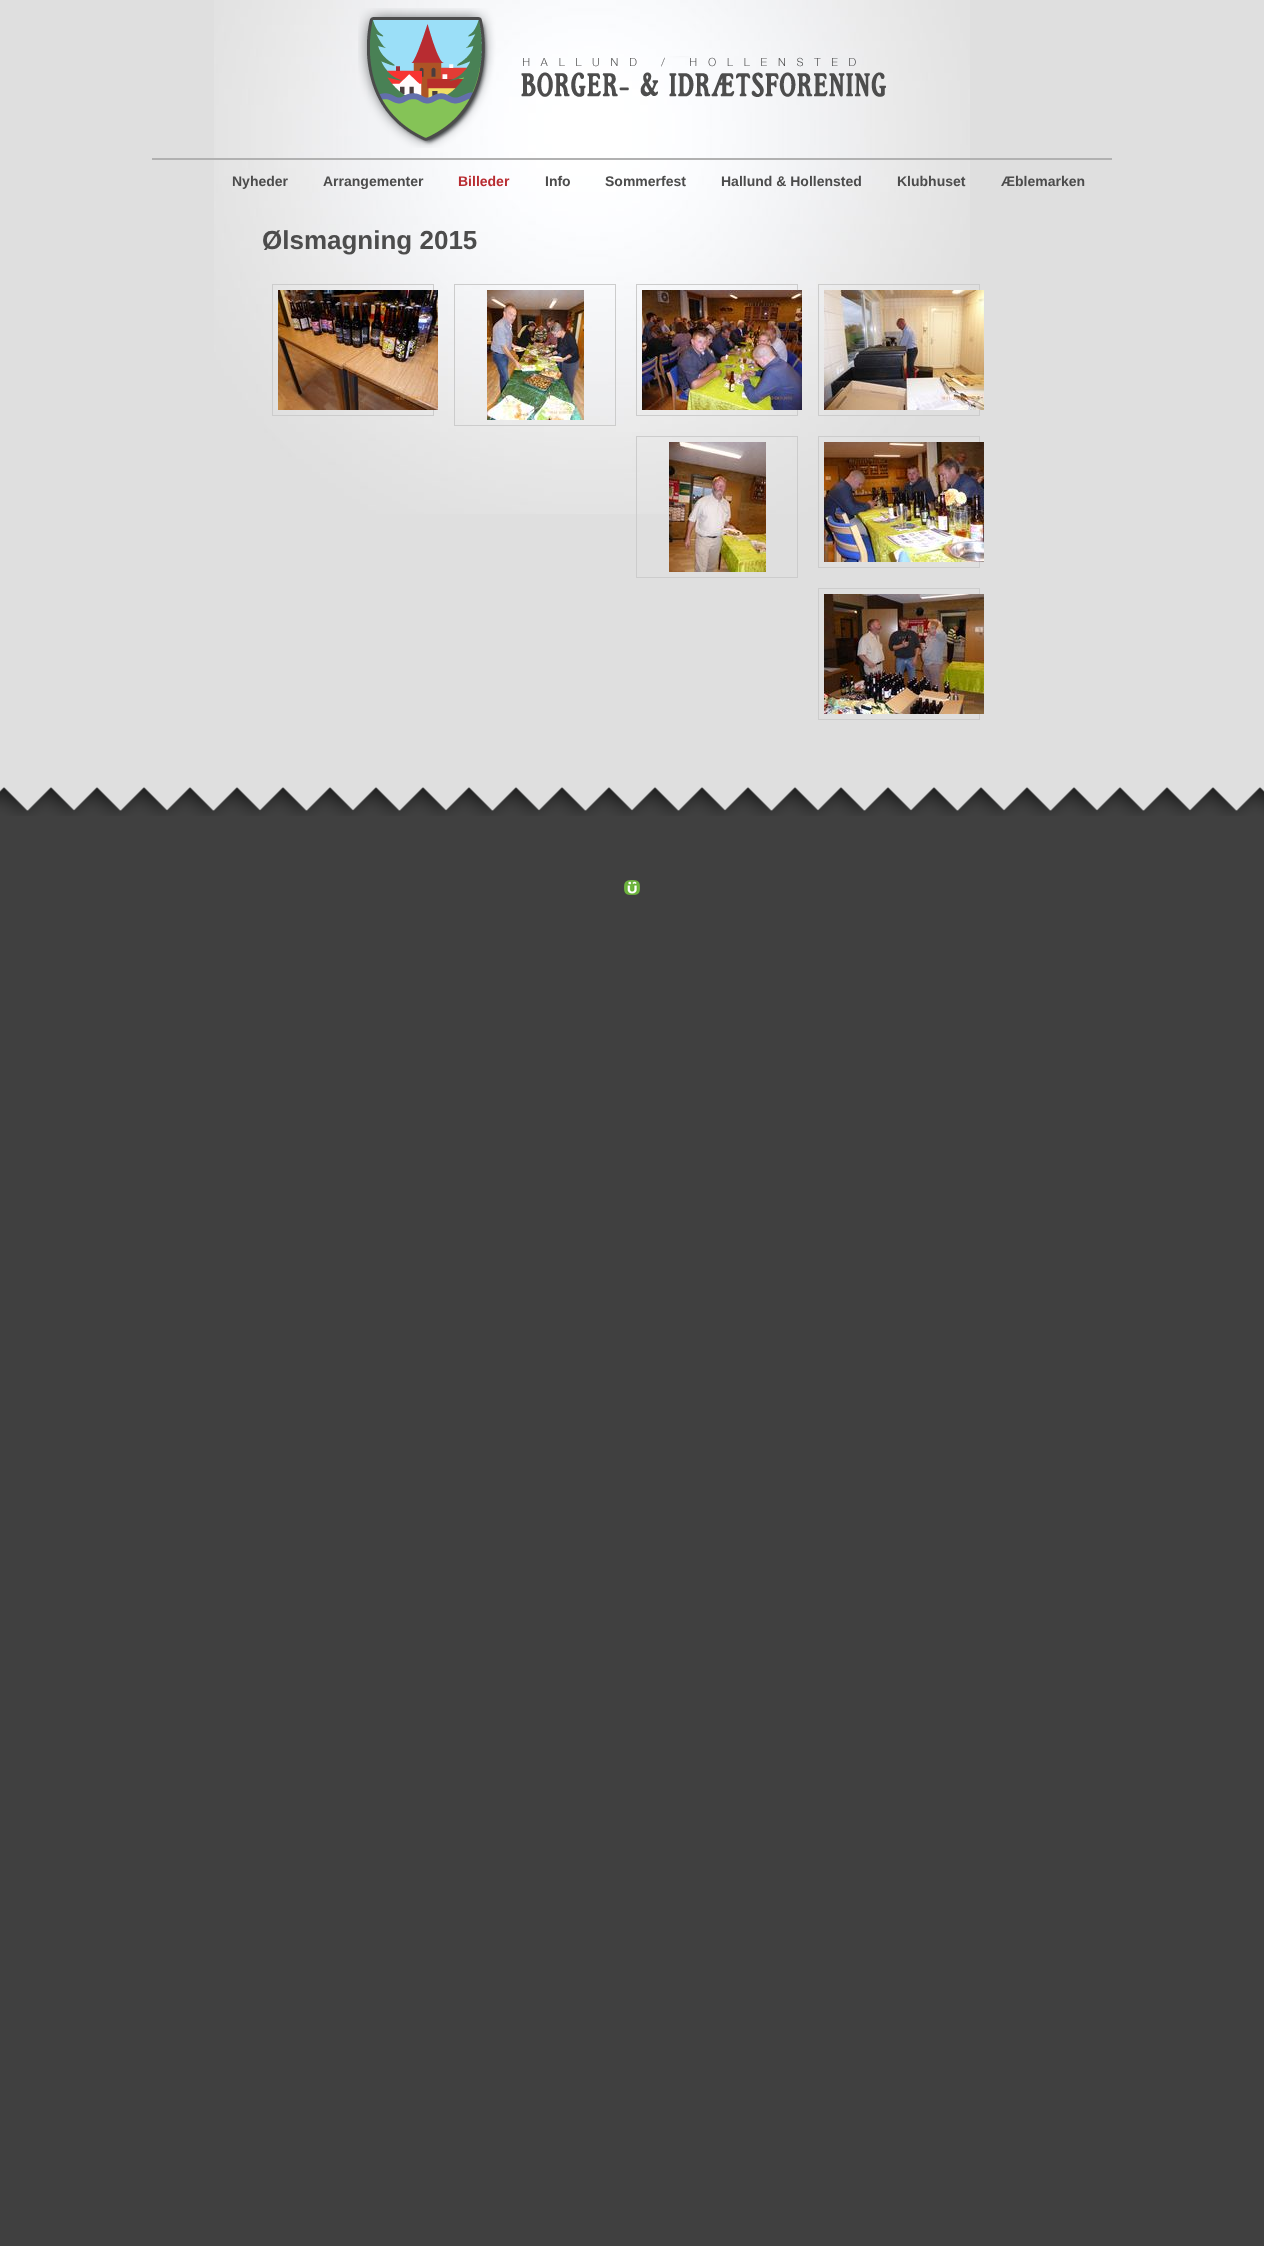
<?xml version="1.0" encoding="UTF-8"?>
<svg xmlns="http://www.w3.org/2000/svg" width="1264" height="2246">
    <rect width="100%" height="100%" fill="#404040"/>
    <rect x="0" y="0" width="1264" height="780" fill="#DFDFDF"/>
    <image x="214" y="0" width="756" height="514" href="img_01.png"/>
    <rect x="152" y="158" width="960" height="2" fill="#B1B1B1"/>
    <image x="358" y="8" width="528" height="140" href="img_02.png"/>
    <text x="232" y="186" font-family="Liberation Sans" font-size="14" font-weight="700" fill="#4C4C4C">Nyheder</text>
    <text x="323" y="186" font-family="Liberation Sans" font-size="14" font-weight="700" fill="#4C4C4C">Arrangementer</text>
    <text x="458" y="186" font-family="Liberation Sans" font-size="14" font-weight="700" fill="#B82C31">Billeder</text>
    <text x="545" y="186" font-family="Liberation Sans" font-size="14" font-weight="700" fill="#4C4C4C">Info</text>
    <text x="605" y="186" font-family="Liberation Sans" font-size="14" font-weight="700" fill="#4C4C4C">Sommerfest</text>
    <text x="721" y="186" font-family="Liberation Sans" font-size="14" font-weight="700" fill="#4C4C4C">Hallund &amp; Hollensted</text>
    <text x="897" y="186" font-family="Liberation Sans" font-size="14" font-weight="700" fill="#4C4C4C">Klubhuset</text>
    <text x="1001" y="186" font-family="Liberation Sans" font-size="14" font-weight="700" fill="#4C4C4C">Æblemarken</text>
    <text x="262" y="249" font-family="Liberation Sans" font-size="26" font-weight="700" fill="#4C4C4C">Ølsmagning 2015</text>
    <rect x="272.5" y="284.5" width="161" height="131" fill="none" stroke="#CCCCCC"/>
    <image x="278" y="290" width="160" height="120" href="img_03.png"/>
    <rect x="454.5" y="284.5" width="161" height="141" fill="none" stroke="#CCCCCC"/>
    <image x="487" y="290" width="97" height="130" href="img_04.png"/>
    <rect x="636.5" y="284.5" width="161" height="131" fill="none" stroke="#CCCCCC"/>
    <image x="642" y="290" width="160" height="120" href="img_05.png"/>
    <rect x="818.5" y="284.5" width="161" height="131" fill="none" stroke="#CCCCCC"/>
    <image x="824" y="290" width="160" height="120" href="img_06.png"/>
    <rect x="636.5" y="436.5" width="161" height="141" fill="none" stroke="#CCCCCC"/>
    <image x="669" y="442" width="97" height="130" href="img_07.png"/>
    <rect x="818.5" y="436.5" width="161" height="131" fill="none" stroke="#CCCCCC"/>
    <image x="824" y="442" width="160" height="120" href="img_08.png"/>
    <rect x="818.5" y="588.5" width="161" height="131" fill="none" stroke="#CCCCCC"/>
    <image x="824" y="594" width="160" height="120" href="img_09.png"/>
    <image x="0" y="780" width="1264" height="36" href="img_10.png"/>
    <image x="624" y="880" width="16" height="15" href="img_11.png"/>
</svg>
